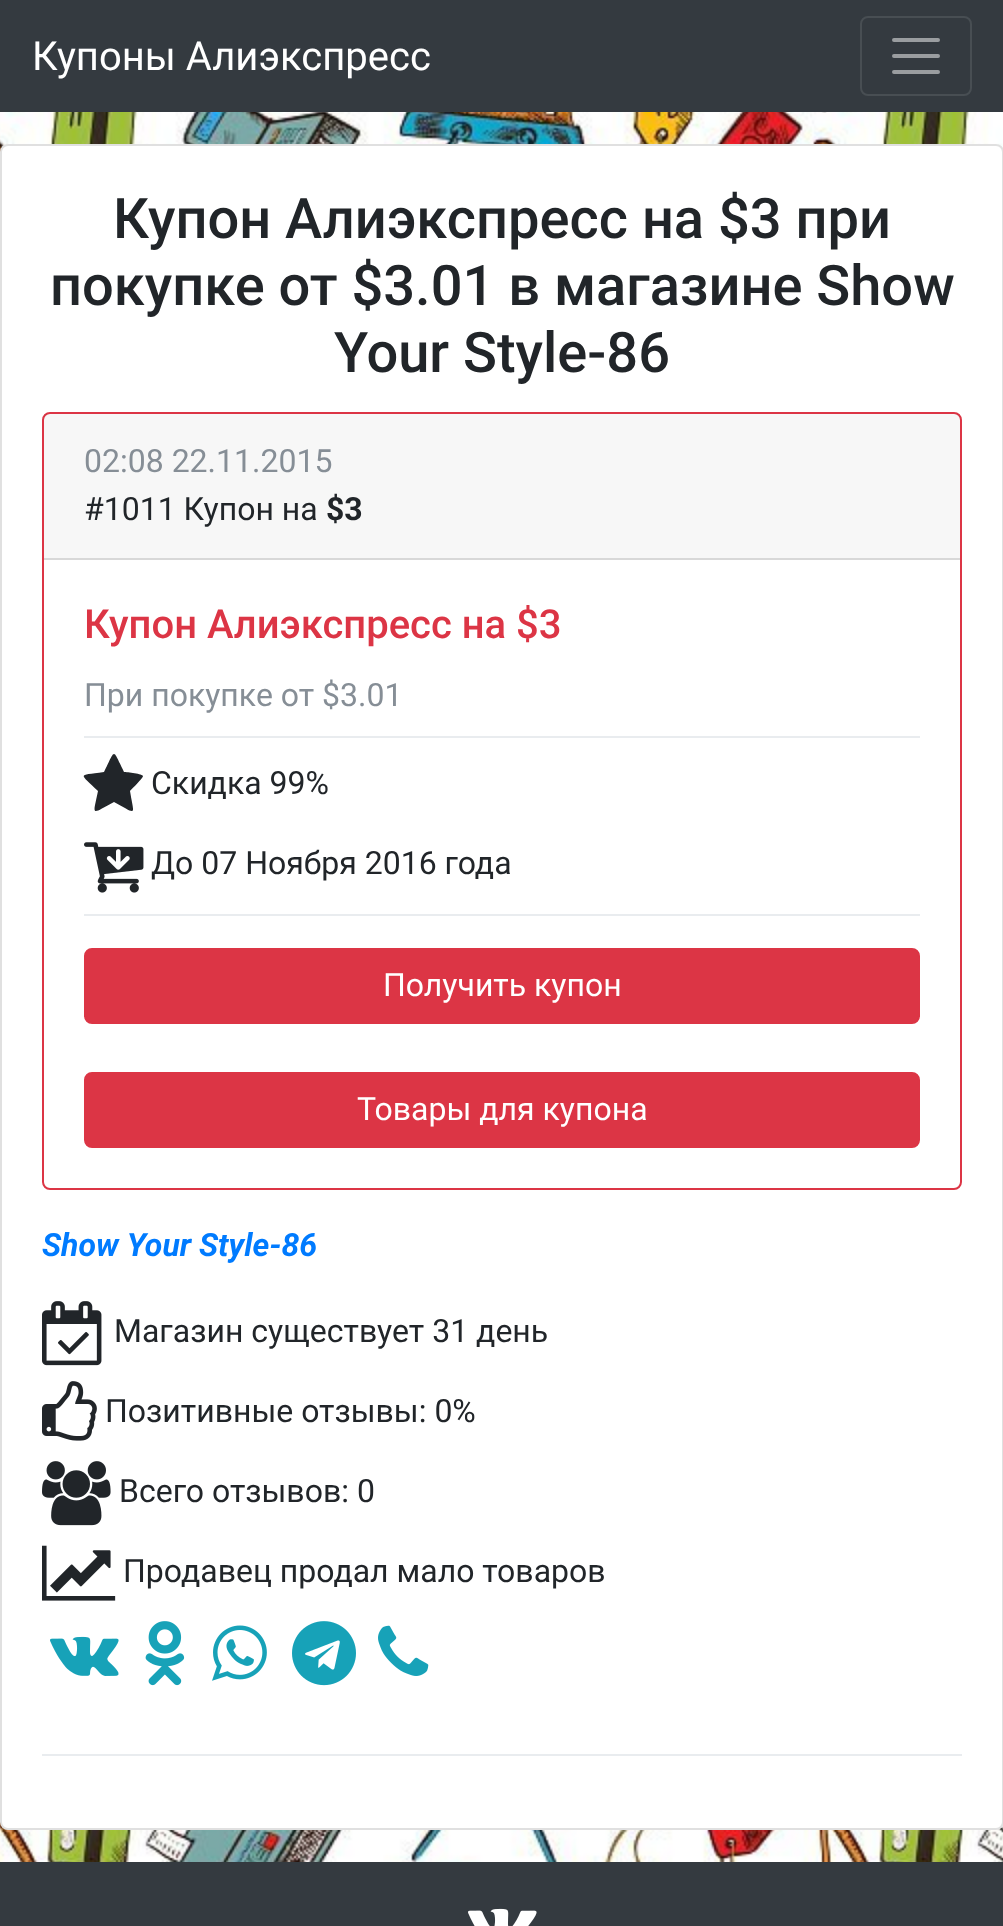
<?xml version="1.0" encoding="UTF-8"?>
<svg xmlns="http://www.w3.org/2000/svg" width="1003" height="1926">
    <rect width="100%" height="100%" fill="#FFFFFF"/>
    <image x="0" y="112" width="1003" height="1750" href="img_01.png"/>
    <rect x="0" y="0" width="1003" height="112" fill="#343A40"/>
    <text x="32" y="70" font-family="Roboto" font-size="40" fill="#FFFFFF">Купоны Алиэкспресс</text>
    <rect x="861" y="17" width="110" height="78" rx="7" fill="none" stroke="#484E53" stroke-width="2"/>
    <path d="M 894 40 H 938 M 894 56 H 938 M 894 72 H 938" fill="none" stroke="#9A9DA0" stroke-width="4" stroke-linecap="round"/>
    <rect x="0" y="144" width="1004" height="1686" rx="8" fill="#FFFFFF"/>
    <rect x="1" y="145" width="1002" height="1684" rx="7" fill="none" stroke="#000000" stroke-opacity="0.12" stroke-width="2"/>
    <text x="113" y="238" font-family="Roboto" font-size="56" font-weight="500" fill="#212529">Купон Алиэкспресс на $3 при</text>
    <text x="50" y="305" font-family="Roboto" font-size="56" font-weight="500" fill="#212529">покупке от $3.01 в магазине Show</text>
    <text x="334" y="372" font-family="Roboto" font-size="56" font-weight="500" fill="#212529">Your Style-86</text>
    <rect x="43" y="413" width="918" height="776" rx="7" fill="none" stroke="#DC3545" stroke-width="2"/>
    <rect x="44" y="414" width="916" height="144" fill="#000000" fill-opacity="0.03"/>
    <rect x="44" y="558" width="916" height="2" fill="#D8D8D8"/>
    <text x="84" y="472" font-family="Roboto" font-size="32" fill="#868E96">02:08 22.11.2015</text>
    <text x="84" y="520" font-family="Roboto" font-size="32" fill="#212529">#1011 Купон на</text>
    <text x="326" y="520" font-family="Roboto" font-size="32" font-weight="700" fill="#212529">$3</text>
    <text x="84" y="638" font-family="Roboto" font-size="40" font-weight="500" fill="#DC3545">Купон Алиэкспресс на $3</text>
    <text x="84" y="706" font-family="Roboto" font-size="32" fill="#868E96">При покупке от $3.01</text>
    <rect x="84" y="736" width="836" height="2" fill="#E9ECEF"/>
    <path d="M 143 776 C 143 778 132 789 130 791 C 134 816 138 815 114 802 C 90 815 93 816 98 791 C 79 772 77 776 104 772 C 116 748 112 748 124 772 C 127 772 143 774 143 776 Z" fill="#212529"/>
    <text x="151" y="794" font-family="Roboto" font-size="32" fill="#212529">Скидка 99%</text>
    <image x="84" y="842" width="60" height="51" href="img_02.png"/>
    <text x="151" y="874" font-family="Roboto" font-size="32" fill="#212529">До 07 Ноября 2016 года</text>
    <rect x="84" y="914" width="836" height="2" fill="#E9ECEF"/>
    <rect x="85" y="949" width="834" height="74" rx="7" fill="#DC3545" stroke="#DC3545" stroke-width="2"/>
    <text x="383" y="996" font-family="Roboto" font-size="32" fill="#FFFFFF">Получить купон</text>
    <rect x="85" y="1073" width="834" height="74" rx="7" fill="#DC3545" stroke="#DC3545" stroke-width="2"/>
    <text x="357" y="1120" font-family="Roboto" font-size="32" fill="#FFFFFF">Товары для купона</text>
    <text x="42" y="1256" font-family="Roboto" font-size="32" font-weight="700" font-style="italic" fill="#007BFF">Show Your Style-86</text>
    <image x="42" y="1301" width="60" height="65" href="img_03.png"/>
    <text x="114" y="1342" font-family="Roboto" font-size="32" fill="#212529">Магазин существует 31 день</text>
    <image x="42" y="1381" width="55" height="60" href="img_04.png"/>
    <text x="105" y="1422" font-family="Roboto" font-size="32" fill="#212529">Позитивные отзывы: 0%</text>
    <image x="42" y="1461" width="69" height="65" href="img_05.png"/>
    <text x="119" y="1502" font-family="Roboto" font-size="32" fill="#212529">Всего отзывов: 0</text>
    <image x="42" y="1545" width="74" height="56" href="img_06.png"/>
    <text x="123" y="1582" font-family="Roboto" font-size="32" fill="#212529">Продавец продал мало товаров</text>
    <image x="50" y="1636" width="69" height="40" href="img_07.png"/>
    <image x="145" y="1621" width="40" height="65" href="img_08.png"/>
    <image x="212" y="1625" width="55" height="56" href="img_09.png"/>
    <image x="292" y="1621" width="64" height="65" href="img_10.png"/>
    <image x="378" y="1625" width="51" height="51" href="img_11.png"/>
    <rect x="42" y="1754" width="920" height="2" fill="#E9ECEF"/>
    <rect x="0" y="1862" width="1003" height="64" fill="#343A40"/>
    <image x="468" y="1908" width="69" height="18" href="img_12.png"/>
</svg>
